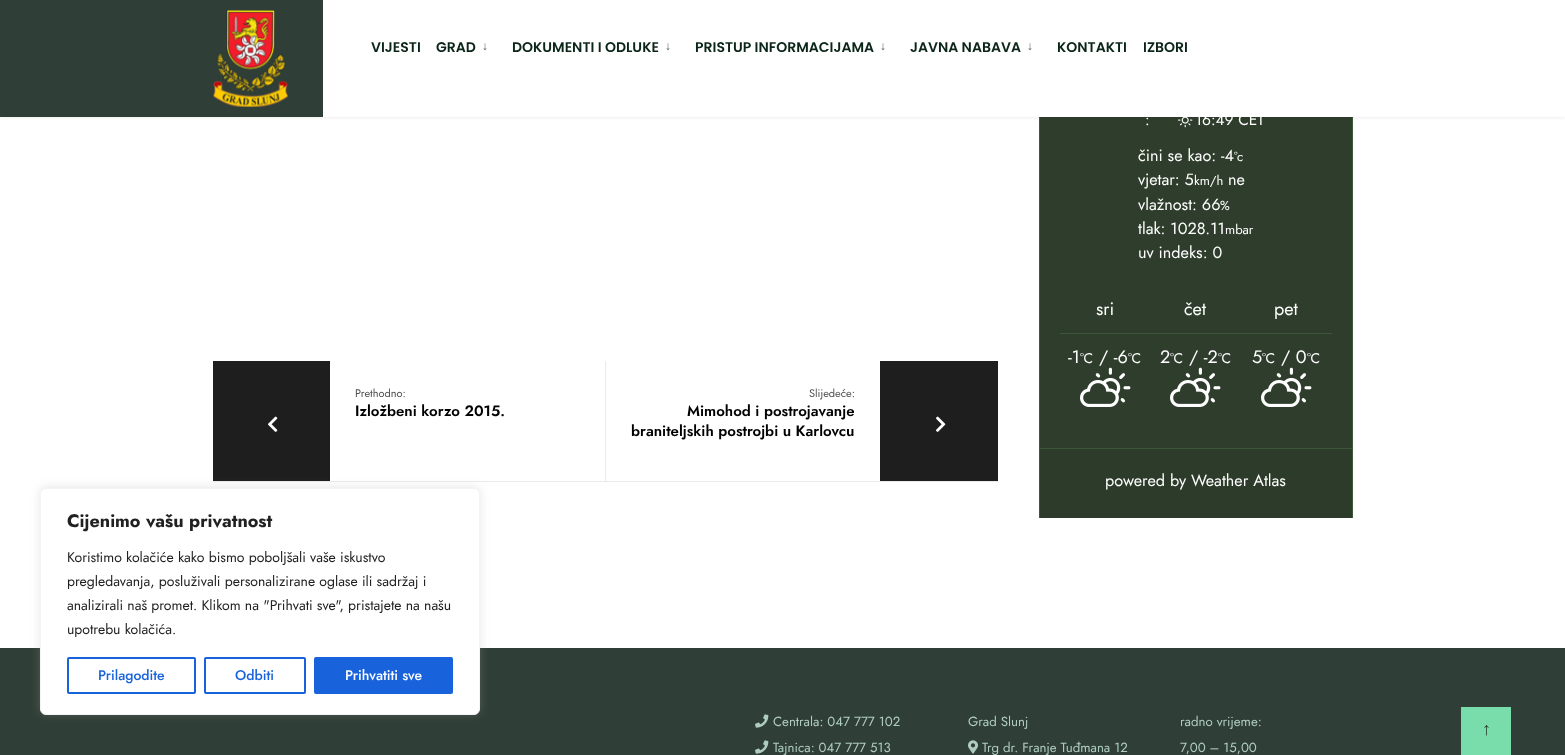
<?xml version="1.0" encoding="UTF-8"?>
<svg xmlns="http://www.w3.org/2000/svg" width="1565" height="755">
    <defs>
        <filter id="blur1" x="-50%" y="-200%" width="200%" height="500%"><feGaussianBlur stdDeviation="5"/></filter>
        <clipPath id="clip1"><rect x="1039" y="0" width="314" height="518"/></clipPath>
        <filter id="blur2" x="-50%" y="-200%" width="200%" height="500%"><feGaussianBlur stdDeviation="2"/></filter>
    </defs>
    <rect width="100%" height="100%" fill="#FFFFFF"/>
    <rect x="213" y="481" width="786" height="1" fill="#EAEAEA"/>
    <rect x="213" y="361" width="117" height="120" fill="#1E1E1E"/>
    <rect x="0" y="648" width="1565" height="107" fill="#2F3E36"/>
    <rect x="40" y="487" width="440" height="227" rx="6" fill="#ACABAB" fill-opacity="0.3" filter="url(#blur1)"/>
    <rect x="40.5" y="488.5" width="439" height="226" rx="5.5" fill="#FFFFFF" stroke="#F4F4F4"/>
    <text x="67" y="527" font-family="Jost" font-size="18" font-weight="700" fill="#212121">Cijenimo vašu privatnost</text>
    <text font-family="Jost" font-size="14" fill="#212121">
        <tspan x="67" y="562">Koristimo kolačiće kako bismo poboljšali vaše iskustvo</tspan>
        <tspan x="67" y="586">pregledavanja, posluživali personalizirane oglase ili sadržaj i</tspan>
        <tspan x="67" y="610">analizirali naš promet. Klikom na "Prihvati sve", pristajete na našu</tspan>
        <tspan x="67" y="634">upotrebu kolačića.</tspan>
    </text>
    <rect x="68" y="658" width="127" height="35" rx="1" fill="none" stroke="#1863DC" stroke-width="2"/>
    <text x="98" y="680" font-family="Jost" font-size="14" font-weight="500" fill="#1863DC">Prilagodite</text>
    <rect x="205" y="658" width="100" height="35" rx="1" fill="none" stroke="#1863DC" stroke-width="2"/>
    <text x="235" y="680" font-family="Jost" font-size="14" font-weight="500" fill="#1863DC">Odbiti</text>
    <rect x="315" y="658" width="137" height="35" rx="1" fill="#1863DC" stroke="#1863DC" stroke-width="2"/>
    <text x="345" y="680" font-family="Jost" font-size="14" font-weight="500" fill="#FFFFFF">Prihvatiti sve</text>
    <g clip-path="url(#clip1)">
        <rect x="1039.5" y="-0.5" width="313" height="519" fill="none" stroke="#3D5739"/>
    </g>
    <rect x="1040" y="117" width="312" height="331" fill="#2F3E2C"/>
    <image x="1178" y="117" width="15" height="11" href="img_04.png"/>
    <rect x="0" y="0" width="1565" height="117" fill="#000000" fill-opacity="0.1" filter="url(#blur2)"/>
    <rect x="323" y="0" width="1242" height="117" fill="#FFFFFF"/>
    <rect x="0" y="0" width="323" height="117" fill="#2F3E36"/>
    <image x="213" y="10" width="75" height="97" href="img_01.png"/>
    <text x="371" y="52" font-family="Poppins" font-size="14" font-weight="600" fill="#0B2618">VIJESTI</text>
    <text x="436" y="52" font-family="Poppins" font-size="14" font-weight="600" fill="#0B2618">GRAD</text>
    <text x="482" y="50" font-family="Liberation Sans" font-size="12" fill="#54675D">↓</text>
    <text x="512" y="52" font-family="Poppins" font-size="14" font-weight="600" fill="#0B2618">DOKUMENTI I ODLUKE</text>
    <text x="665" y="50" font-family="Liberation Sans" font-size="12" fill="#54675D">↓</text>
    <text x="695" y="52" font-family="Poppins" font-size="14" font-weight="600" fill="#0B2618">PRISTUP INFORMACIJAMA</text>
    <text x="880" y="50" font-family="Liberation Sans" font-size="12" fill="#54675D">↓</text>
    <text x="910" y="52" font-family="Poppins" font-size="14" font-weight="600" fill="#0B2618">JAVNA NABAVA</text>
    <text x="1027" y="50" font-family="Liberation Sans" font-size="12" fill="#54675D">↓</text>
    <text x="1057" y="52" font-family="Poppins" font-size="14" font-weight="600" fill="#0B2618">KONTAKTI</text>
    <text x="1143" y="52" font-family="Poppins" font-size="14" font-weight="600" fill="#0B2618">IZBORI</text>
    <rect x="605" y="361" width="1" height="120" fill="#EAEAEA"/>
    <image x="268" y="416" width="10" height="16" href="img_02.png"/>
    <text x="355" y="397" font-family="Jost" font-size="11" fill="#4D4D4D">Prethodno:</text>
    <text x="355" y="416" font-family="Jost" font-size="15" font-weight="600" fill="#000000">Izložbeni korzo 2015.</text>
    <text x="809" y="397" font-family="Jost" font-size="11" fill="#4D4D4D">Slijedeće:</text>
    <text x="687" y="416" font-family="Jost" font-size="15" font-weight="600" fill="#000000">Mimohod i postrojavanje</text>
    <text x="631" y="436" font-family="Jost" font-size="15" font-weight="600" fill="#000000">braniteljskih postrojbi u Karlovcu</text>
    <rect x="880" y="361" width="118" height="120" fill="#1E1E1E"/>
    <image x="936" y="416" width="10" height="16" href="img_03.png"/>
    <text x="1145" y="125" font-family="Jost" font-size="15.5" fill="#FFFFFF">:</text>
    <text x="1195" y="125" font-family="Jost" font-size="15.5" fill="#FFFFFF">16:49 CET</text>
    <text x="1138" y="161" font-family="Jost" font-size="16.25" fill="#FFFFFF">čini se kao: -4</text>
    <text x="1234" y="161" font-family="Jost" font-size="13" fill="#FFFFFF">°c</text>
    <text x="1138" y="185" font-family="Jost" font-size="16.25" fill="#FFFFFF">vjetar: 5</text>
    <text x="1194" y="185" font-family="Jost" font-size="13" fill="#FFFFFF">km/h</text>
    <text x="1228" y="185" font-family="Jost" font-size="16.25" fill="#FFFFFF">ne</text>
    <text x="1138" y="210" font-family="Jost" font-size="16.25" fill="#FFFFFF">vlažnost: 66</text>
    <text x="1220" y="210" font-family="Jost" font-size="13" fill="#FFFFFF">%</text>
    <text x="1138" y="234" font-family="Jost" font-size="16.25" fill="#FFFFFF">tlak: 1028.11</text>
    <text x="1225" y="234" font-family="Jost" font-size="13" fill="#FFFFFF">mbar</text>
    <text x="1138" y="258" font-family="Jost" font-size="16.25" fill="#FFFFFF">uv indeks: 0</text>
    <rect x="1060" y="333" width="272" height="1" fill="#3D5739"/>
    <text x="1096" y="315" font-family="Jost" font-size="18" fill="#FFFFFF">sri</text>
    <text x="1184" y="315" font-family="Jost" font-size="18" fill="#FFFFFF">čet</text>
    <text x="1274" y="315" font-family="Jost" font-size="18" fill="#FFFFFF">pet</text>
    <text x="1068" y="363" font-family="Jost" font-size="18" fill="#FFFFFF">-1</text>
    <text x="1080" y="363" font-family="Jost" font-size="14" fill="#FFFFFF">°C</text>
    <text x="1099" y="363" font-family="Jost" font-size="18" fill="#FFFFFF">/ -6</text>
    <text x="1128" y="363" font-family="Jost" font-size="14" fill="#FFFFFF">°C</text>
    <image x="1080" y="367" width="51" height="40" href="img_05.png"/>
    <text x="1160" y="363" font-family="Jost" font-size="18" fill="#FFFFFF">2</text>
    <text x="1170" y="363" font-family="Jost" font-size="14" fill="#FFFFFF">°C</text>
    <text x="1189" y="363" font-family="Jost" font-size="18" fill="#FFFFFF">/ -2</text>
    <text x="1218" y="363" font-family="Jost" font-size="14" fill="#FFFFFF">°C</text>
    <image x="1170" y="367" width="51" height="40" href="img_05.png"/>
    <text x="1252" y="363" font-family="Jost" font-size="18" fill="#FFFFFF">5</text>
    <text x="1262" y="363" font-family="Jost" font-size="14" fill="#FFFFFF">°C</text>
    <text x="1281" y="363" font-family="Jost" font-size="18" fill="#FFFFFF">/ 0</text>
    <text x="1307" y="363" font-family="Jost" font-size="14" fill="#FFFFFF">°C</text>
    <image x="1261" y="367" width="51" height="40" href="img_05.png"/>
    <rect x="1040" y="449" width="312" height="69" fill="#2D3B2A"/>
    <rect x="1040" y="448" width="312" height="1" fill="#3D5739"/>
    <text x="1105" y="486" font-family="Jost" font-size="16.25" fill="#FFFFFF">powered by Weather Atlas</text>
    <image x="755" y="714" width="14" height="14" href="img_06.png"/>
    <text x="773" y="726" font-family="Jost" font-size="13.25" fill="#AFCCC2">Centrala: 047 777 102</text>
    <image x="755" y="740" width="14" height="14" href="img_06.png"/>
    <text x="773" y="752" font-family="Jost" font-size="13.25" fill="#AFCCC2">Tajnica: 047 777 513</text>
    <text x="968" y="726" font-family="Jost" font-size="13.25" fill="#AFCCC2">Grad Slunj</text>
    <image x="968" y="740" width="10" height="14" href="img_07.png"/>
    <text x="982" y="752" font-family="Jost" font-size="13.25" fill="#AFCCC2">Trg dr. Franje Tuđmana 12</text>
    <text font-family="Jost" font-size="13.25" fill="#AFCCC2">
        <tspan x="1180" y="726">radno vrijeme:</tspan>
        <tspan x="1180" y="752">7,00 – 15,00</tspan>
    </text>
    <rect x="1461" y="707" width="50" height="48" fill="#78DDAA"/>
    <text x="1482" y="735" font-family="Liberation Serif" font-size="18" fill="#223523">↑</text>
</svg>
